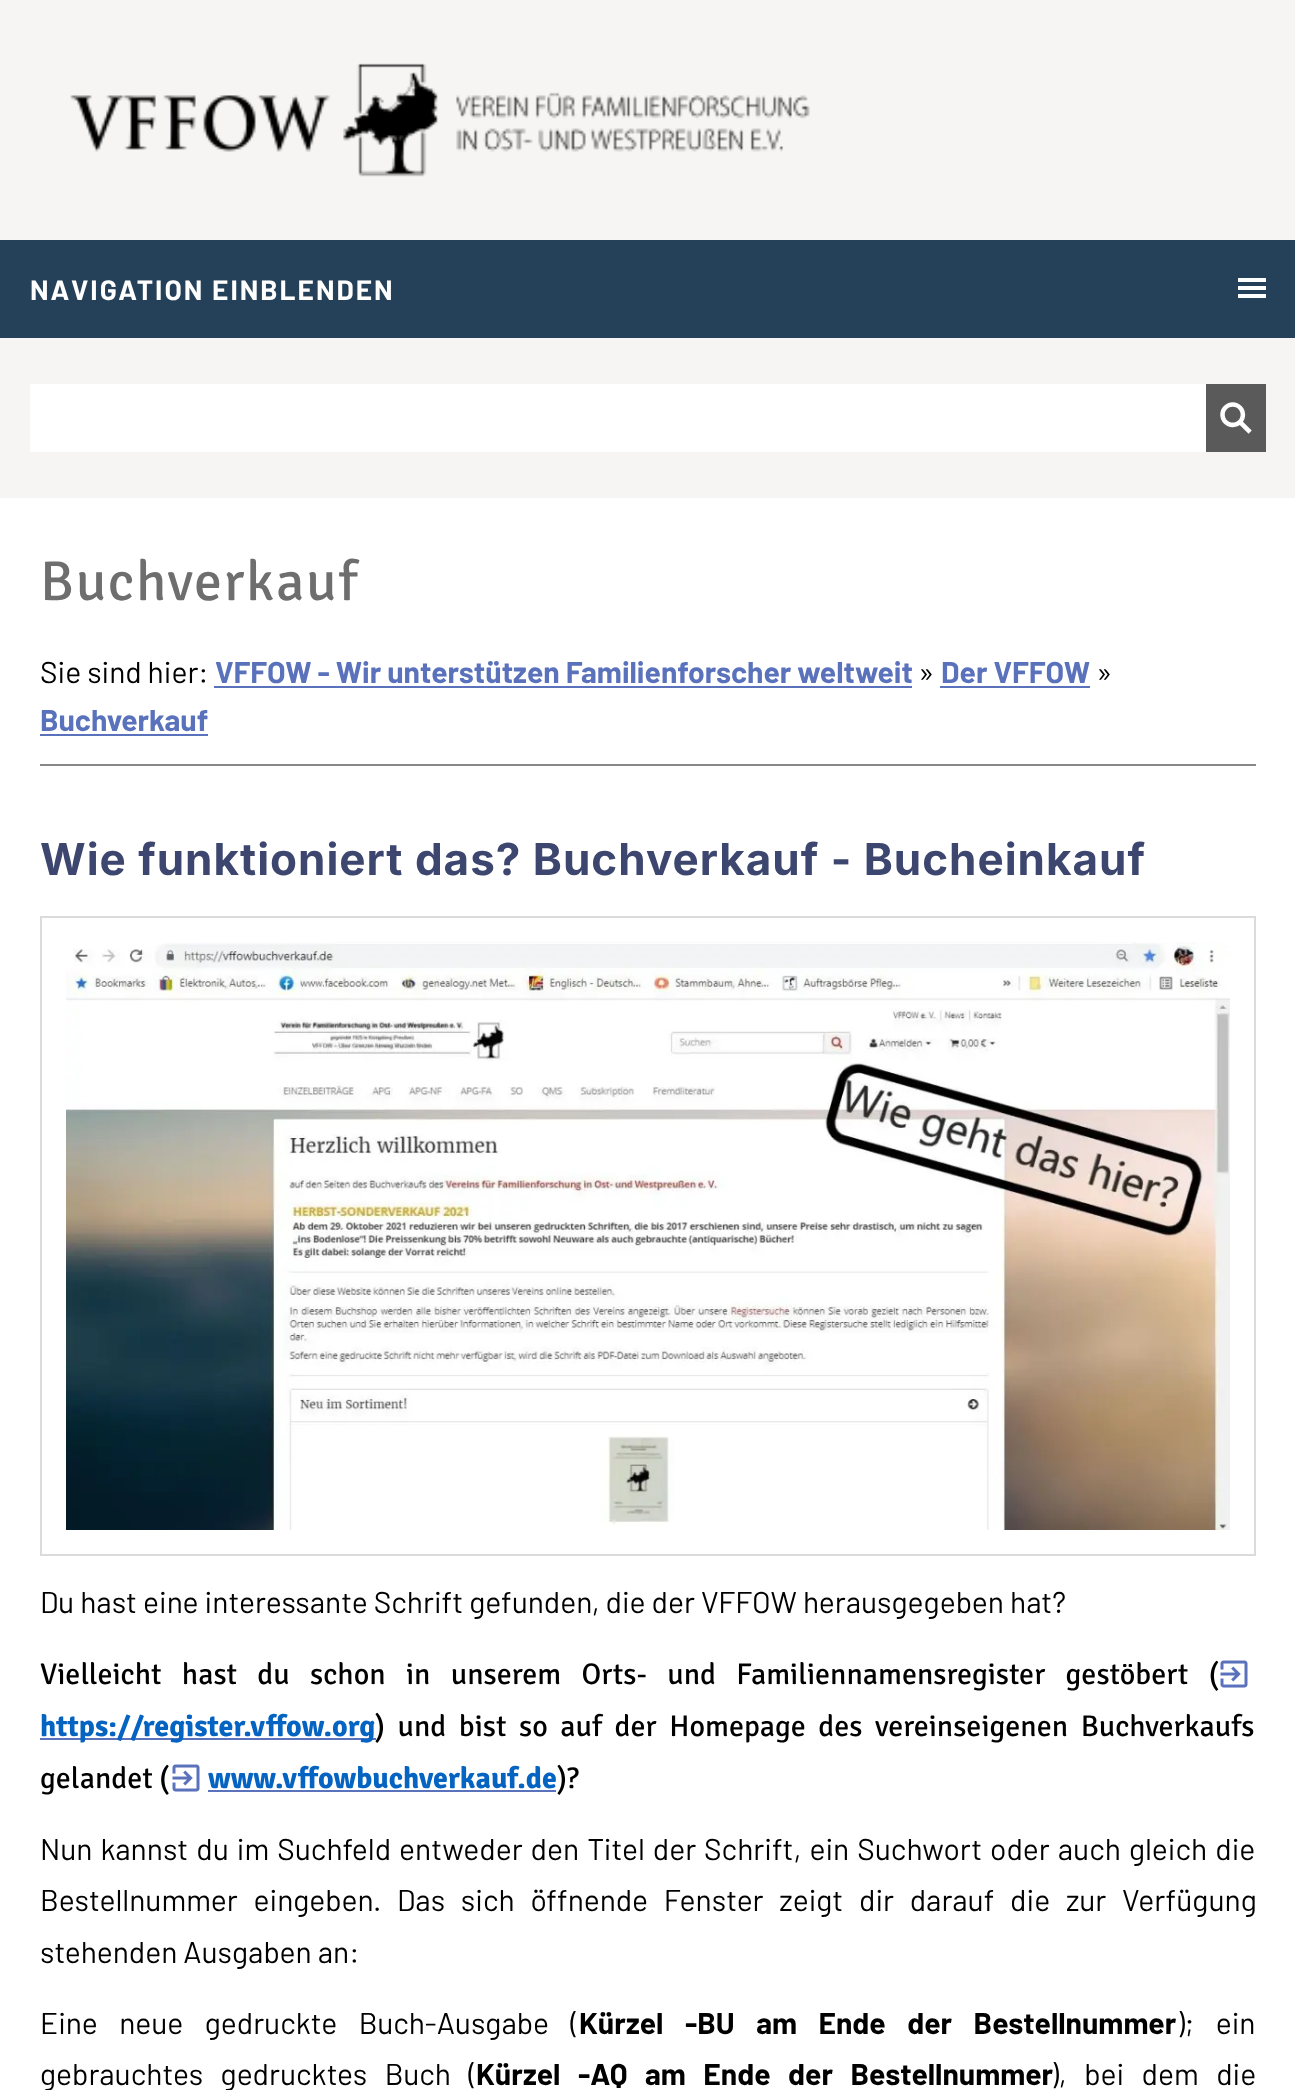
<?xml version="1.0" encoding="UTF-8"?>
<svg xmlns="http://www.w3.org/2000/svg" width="1295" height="2090">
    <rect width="100%" height="100%" fill="#F7F5F4"/>
    <image x="70" y="63" width="740" height="114" href="img_01.png"/>
    <rect x="0" y="240" width="1295" height="98" fill="#244159"/>
    <image x="1238" y="278" width="28" height="20" href="img_02.png"/>
    <text x="30" y="300" font-family="Barlow" font-size="28" font-weight="700" letter-spacing="2" fill="#FFFFFF">NAVIGATION EINBLENDEN</text>
    <rect x="30" y="384" width="1176" height="68" fill="#FFFFFF"/>
    <rect x="1206" y="384" width="60" height="68" fill="#5A5A5A"/>
    <image x="1220" y="402" width="32" height="32" href="img_03.png"/>
    <rect x="0" y="498" width="1295" height="1592" fill="#FFFFFF"/>
    <text x="40" y="600" font-family="Signika" font-size="56" letter-spacing="1.75" fill="#6E6E6E">Buchverkauf</text>
    <text x="40" y="683" font-family="Barlow" font-size="30" fill="#000000">Sie sind hier:</text>
    <text x="215" y="683" font-family="Barlow" font-size="30" font-weight="700" fill="#5A71BB">VFFOW - Wir unterstützen Familienforscher weltweit</text>
    <rect x="214" y="686" width="698" height="2" fill="#5A71BB"/>
    <text x="918" y="683" font-family="Barlow" font-size="30" fill="#000000">»</text>
    <text x="941" y="683" font-family="Barlow" font-size="30" font-weight="700" fill="#5A71BB">Der VFFOW</text>
    <rect x="940" y="686" width="150" height="2" fill="#5A71BB"/>
    <text x="1096" y="683" font-family="Barlow" font-size="30" fill="#000000">»</text>
    <text x="40" y="731" font-family="Barlow" font-size="30" font-weight="700" fill="#5A71BB">Buchverkauf</text>
    <rect x="40" y="734" width="168" height="2" fill="#5A71BB"/>
    <rect x="40" y="764" width="1216" height="2" fill="#888888"/>
    <text x="40" y="875" font-family="Inter" font-size="44" font-weight="700" letter-spacing="1" fill="#3C466E">Wie funktioniert das? Buchverkauf - Bucheinkauf</text>
    <rect x="41" y="917" width="1214" height="638" fill="none" stroke="#DCDBDB" stroke-width="2"/>
    <image x="66" y="942" width="1164" height="588" href="img_04.png"/>
    <text x="40" y="1613" font-family="Barlow" font-size="30" fill="#000000">Du hast eine interessante Schrift gefunden, die der VFFOW herausgegeben hat?</text>
    <text x="40" y="1684" word-spacing="13.75" font-family="Signika" font-size="30" fill="#000000">Vielleicht hast du schon in unserem Orts- und Familiennamensregister gestöbert (</text>
    <image x="1220" y="1660" width="28" height="28" href="img_05.png"/>
    <rect x="40" y="1738" width="336" height="2" fill="#5A71BB"/>
    <text x="40" y="1736" font-family="Signika" font-size="30" font-weight="700" fill="#0563C1">https://register.vffow.org</text>
    <text x="375" y="1736" word-spacing="6" font-family="Signika" font-size="30" fill="#000000">) und bist so auf der Homepage des vereinseigenen Buchverkaufs</text>
    <text x="40" y="1788" font-family="Signika" font-size="30" fill="#000000">gelandet (</text>
    <image x="172" y="1764" width="28" height="28" href="img_05.png"/>
    <text x="208" y="1788" font-family="Signika" font-size="30" font-weight="700" fill="#0563C1">www.vffowbuchverkauf.de</text>
    <rect x="208" y="1790" width="348" height="2" fill="#5A71BB"/>
    <text x="557" y="1788" font-family="Signika" font-size="30" fill="#000000">)?</text>
    <text font-family="Barlow" font-size="30" fill="#000000">
        <tspan x="40" y="1860" word-spacing="2">Nun kannst du im Suchfeld entweder den Titel der Schrift, ein Suchwort oder auch gleich die</tspan>
        <tspan x="40" y="1911" word-spacing="9.75">Bestellnummer eingeben.</tspan>
    </text>
    <text x="397" y="1911" word-spacing="9.75" font-family="Barlow" font-size="30" fill="#000000">Das sich öffnende Fenster zeigt dir darauf die zur Verfügung</text>
    <text x="40" y="1963" font-family="Barlow" font-size="30" fill="#000000">stehenden Ausgaben an:</text>
    <text x="40" y="2034" word-spacing="15.5" font-family="Barlow" font-size="30" fill="#000000">Eine neue gedruckte Buch-Ausgabe (</text>
    <text x="579" y="2034" word-spacing="15.5" font-family="Barlow" font-size="30" font-weight="700" fill="#000000">Kürzel -BU am Ende der Bestellnummer</text>
    <text x="1177" y="2034" word-spacing="15.5" font-family="Barlow" font-size="30" fill="#000000">); ein</text>
    <text x="40" y="2085" word-spacing="11.5" font-family="Barlow" font-size="30" fill="#000000">gebrauchtes gedrucktes Buch (</text>
    <text x="476" y="2085" word-spacing="11.5" font-family="Barlow" font-size="30" font-weight="700" fill="#000000">Kürzel -AQ am Ende der Bestellnummer</text>
    <text x="1051" y="2085" word-spacing="11.5" font-family="Barlow" font-size="30" fill="#000000">), bei dem die</text>
</svg>
